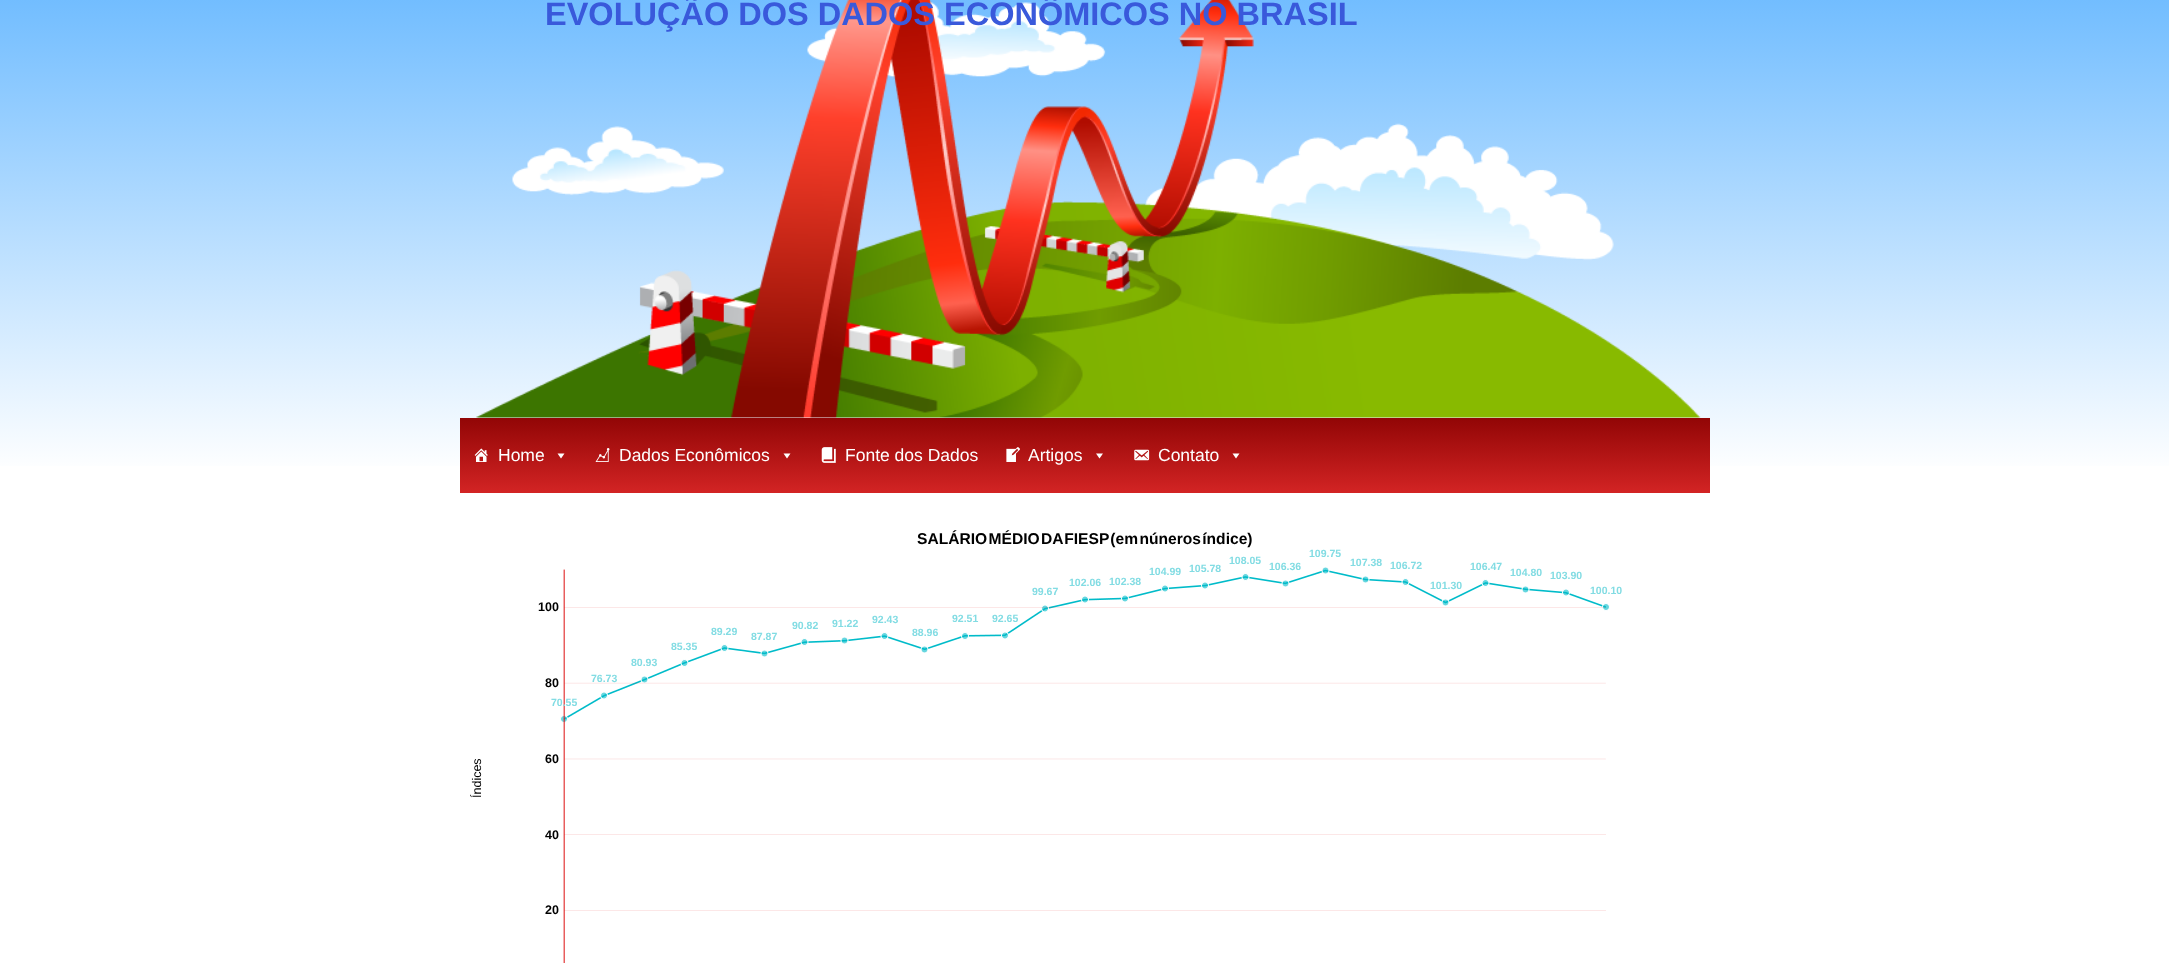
<?xml version="1.0" encoding="UTF-8"?>
<svg xmlns="http://www.w3.org/2000/svg" width="2169" height="963">
    <defs>
        <linearGradient id="g1" gradientUnits="userSpaceOnUse" x1="1085" y1="-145" x2="1085" y2="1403"><stop offset="0" stop-color="#47A9FF"/><stop offset="0.4" stop-color="#FFFFFF"/></linearGradient>
        <linearGradient id="g2" gradientUnits="userSpaceOnUse" x1="1085" y1="417" x2="1085" y2="493"><stop offset="0" stop-color="#910505"/><stop offset="1" stop-color="#D32424"/></linearGradient>
    </defs>
    <rect width="100%" height="100%" fill="#FFFFFF"/>
    <rect x="0" y="0" width="2169" height="466" fill="url(#g1)"/>
    <image x="476" y="0" width="1225" height="418" href="img_01.png"/>
    <text x="545" y="25" font-family="Liberation Sans" font-size="32.5" font-weight="700" fill="#3959DB">EVOLUÇÃO DOS DADOS ECONÔMICOS NO BRASIL</text>
    <rect x="460" y="418" width="1250" height="75" fill="url(#g2)"/>
    <image x="474" y="448" width="14" height="14" href="img_02.png"/>
    <text x="498" y="461" font-family="Liberation Sans" font-size="17.5" fill="#FFFFFF">Home</text>
    <path d="M 564.5 453.5 L 561 458.5 L 557.5 453.5 Z" fill="#FFFFFF"/>
    <image x="595" y="448" width="15" height="14" href="img_03.png"/>
    <text x="619" y="461" font-family="Liberation Sans" font-size="17.5" fill="#FFFFFF">Dados Econômicos</text>
    <path d="M 790.5 453.5 L 787 458.5 L 783.5 453.5 Z" fill="#FFFFFF"/>
    <image x="821" y="447" width="15" height="16" href="img_04.png"/>
    <text x="845" y="461" font-family="Liberation Sans" font-size="17.5" fill="#FFFFFF">Fonte dos Dados</text>
    <image x="1006" y="447" width="14" height="15" href="img_05.png"/>
    <text x="1028" y="461" font-family="Liberation Sans" font-size="17.5" fill="#FFFFFF">Artigos</text>
    <path d="M 1103 453.5 L 1099.5 458.5 L 1096 453.5 Z" fill="#FFFFFF"/>
    <image x="1134" y="449" width="16" height="12" href="img_06.png"/>
    <text x="1158" y="461" font-family="Liberation Sans" font-size="17.5" fill="#FFFFFF">Contato</text>
    <path d="M 1239.5 453.5 L 1236 458.5 L 1232.5 453.5 Z" fill="#FFFFFF"/>
    <text x="917" y="544" word-spacing="-3" font-family="Liberation Sans" font-size="15.6" font-weight="700" fill="#000000">SALÁRIO MÉDIO DA FIESP (em núneros índice)</text>
    <text x="1309" y="557" font-family="Liberation Sans" font-size="10.5" font-weight="700" fill="#82DCE3">109.75</text>
    <image x="560" y="567" width="1050" height="396" href="img_07.png"/>
    <text x="1189" y="572" font-family="Liberation Sans" font-size="10.5" font-weight="700" fill="#82DCE3">105.78</text>
    <text x="1229" y="564" font-family="Liberation Sans" font-size="10.5" font-weight="700" fill="#82DCE3">108.05</text>
    <text x="1269" y="570" font-family="Liberation Sans" font-size="10.5" font-weight="700" fill="#82DCE3">106.36</text>
    <text x="1350" y="566" font-family="Liberation Sans" font-size="10.5" font-weight="700" fill="#82DCE3">107.38</text>
    <text x="1390" y="569" font-family="Liberation Sans" font-size="10.5" font-weight="700" fill="#82DCE3">106.72</text>
    <text x="1470" y="570" font-family="Liberation Sans" font-size="10.5" font-weight="700" fill="#82DCE3">106.47</text>
    <text x="1149" y="575" font-family="Liberation Sans" font-size="10.5" font-weight="700" fill="#82DCE3">104.99</text>
    <text x="1510" y="576" font-family="Liberation Sans" font-size="10.5" font-weight="700" fill="#82DCE3">104.80</text>
    <text x="1550" y="579" font-family="Liberation Sans" font-size="10.5" font-weight="700" fill="#82DCE3">103.90</text>
    <text x="1032" y="595" font-family="Liberation Sans" font-size="10.5" font-weight="700" fill="#82DCE3">99.67</text>
    <text x="1069" y="586" font-family="Liberation Sans" font-size="10.5" font-weight="700" fill="#82DCE3">102.06</text>
    <text x="1109" y="585" font-family="Liberation Sans" font-size="10.5" font-weight="700" fill="#82DCE3">102.38</text>
    <text x="1430" y="589" font-family="Liberation Sans" font-size="10.5" font-weight="700" fill="#82DCE3">101.30</text>
    <text x="1590" y="594" font-family="Liberation Sans" font-size="10.5" font-weight="700" fill="#82DCE3">100.10</text>
    <text x="538" y="611" font-family="Liberation Sans" font-size="12.5" font-weight="700" fill="#000000">100</text>
    <text x="792" y="629" font-family="Liberation Sans" font-size="10.5" font-weight="700" fill="#82DCE3">90.82</text>
    <text x="832" y="627" font-family="Liberation Sans" font-size="10.5" font-weight="700" fill="#82DCE3">91.22</text>
    <text x="872" y="623" font-family="Liberation Sans" font-size="10.5" font-weight="700" fill="#82DCE3">92.43</text>
    <text x="952" y="622" font-family="Liberation Sans" font-size="10.5" font-weight="700" fill="#82DCE3">92.51</text>
    <text x="992" y="622" font-family="Liberation Sans" font-size="10.5" font-weight="700" fill="#82DCE3">92.65</text>
    <text x="711" y="635" font-family="Liberation Sans" font-size="10.5" font-weight="700" fill="#82DCE3">89.29</text>
    <text x="751" y="640" font-family="Liberation Sans" font-size="10.5" font-weight="700" fill="#82DCE3">87.87</text>
    <text x="912" y="636" font-family="Liberation Sans" font-size="10.5" font-weight="700" fill="#82DCE3">88.96</text>
    <text x="671" y="650" font-family="Liberation Sans" font-size="10.5" font-weight="700" fill="#82DCE3">85.35</text>
    <text x="631" y="666" font-family="Liberation Sans" font-size="10.5" font-weight="700" fill="#82DCE3">80.93</text>
    <text x="545" y="687" font-family="Liberation Sans" font-size="12.5" font-weight="700" fill="#000000">80</text>
    <text x="591" y="682" font-family="Liberation Sans" font-size="10.5" font-weight="700" fill="#82DCE3">76.73</text>
    <text x="551" y="706" font-family="Liberation Sans" font-size="10.5" font-weight="700" fill="#82DCE3">70.55</text>
    <text x="481" y="798" transform="rotate(-90 481 798)" font-family="Liberation Sans" font-size="12.5" fill="#000000">Índices</text>
    <text x="545" y="763" font-family="Liberation Sans" font-size="12.5" font-weight="700" fill="#000000">60</text>
    <text x="545" y="839" font-family="Liberation Sans" font-size="12.5" font-weight="700" fill="#000000">40</text>
    <text x="545" y="914" font-family="Liberation Sans" font-size="12.5" font-weight="700" fill="#000000">20</text>
</svg>
